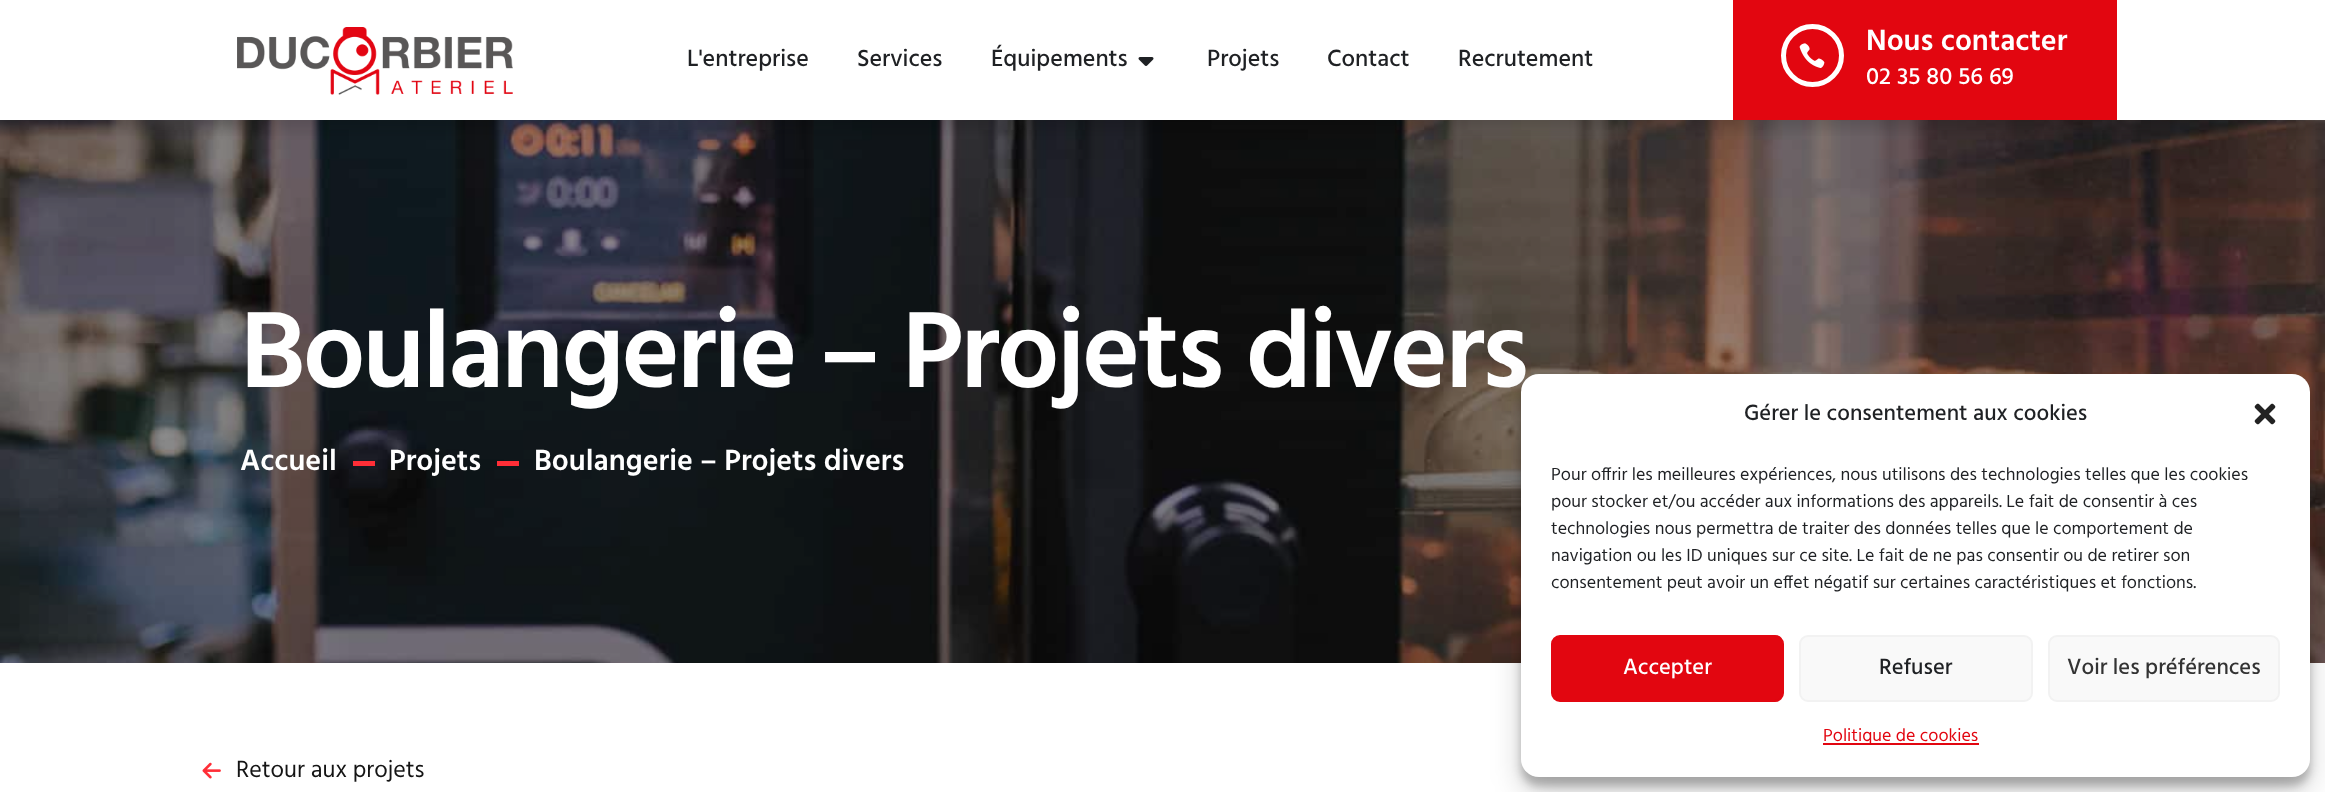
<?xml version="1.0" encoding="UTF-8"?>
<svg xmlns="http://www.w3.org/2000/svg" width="2325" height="792">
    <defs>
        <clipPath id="clip1"><rect x="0" y="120" width="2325" height="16"/></clipPath>
        <filter id="blur1" x="-50%" y="-200%" width="200%" height="500%"><feGaussianBlur stdDeviation="7.5"/></filter>
        <filter id="blur2" x="-50%" y="-200%" width="200%" height="500%"><feGaussianBlur stdDeviation="4.5"/></filter>
        <filter id="blur3" x="-50%" y="-200%" width="200%" height="500%"><feGaussianBlur stdDeviation="15"/></filter>
    </defs>
    <rect width="100%" height="100%" fill="#FFFFFF"/>
    <image x="0" y="120" width="2325" height="543" href="img_04.png"/>
    <g clip-path="url(#clip1)">
        <rect x="0" y="8" width="2325" height="120" fill="#000000" fill-opacity="0.15" filter="url(#blur1)"/>
    </g>
    <image x="237" y="27" width="276" height="68" href="img_01.png"/>
    <text x="687" y="66" font-family="Hind" font-size="24" font-weight="500" fill="#1F2124">L'entreprise</text>
    <text x="857" y="66" font-family="Hind" font-size="24" font-weight="500" fill="#1F2124">Services</text>
    <text x="991" y="66" font-family="Hind" font-size="24" font-weight="500" fill="#1F2124">Équipements</text>
    <image x="1138" y="57" width="16" height="9" href="img_02.png"/>
    <text x="1207" y="66" font-family="Hind" font-size="24" font-weight="500" fill="#1F2124">Projets</text>
    <text x="1327" y="66" font-family="Hind" font-size="24" font-weight="500" fill="#1F2124">Contact</text>
    <text x="1458" y="66" font-family="Hind" font-size="24" font-weight="500" fill="#1F2124">Recrutement</text>
    <rect x="1733" y="0" width="384" height="120" fill="#E20610"/>
    <circle cx="1812.5" cy="55.5" r="29" fill="none" stroke="#FFFFFF" stroke-width="5"/>
    <image x="1799" y="43" width="26" height="25" href="img_03.png"/>
    <text x="1866" y="50" font-family="Hind" font-size="30" font-weight="600" fill="#FFFFFF">Nous contacter</text>
    <text x="1866" y="84" font-family="Hind" font-size="24" font-weight="500" fill="#FFFFFF">02 35 80 56 69</text>
    <text x="240" y="387" font-family="Hind" font-size="111" font-weight="600" letter-spacing="-3" fill="#FFFFFF">Boulangerie – Projets divers</text>
    <text x="240" y="470" font-family="Hind" font-size="30" font-weight="600" fill="#FFFFFF">Accueil</text>
    <rect x="353" y="461" width="22" height="5" fill="#FF2E37"/>
    <text x="389" y="470" font-family="Hind" font-size="30" font-weight="600" fill="#FFFFFF">Projets</text>
    <rect x="497" y="461" width="22" height="5" fill="#FF2E37"/>
    <text x="534" y="470" font-family="Hind" font-size="30" font-weight="600" fill="#FFFFFF">Boulangerie – Projets divers</text>
    <image x="202" y="762" width="19" height="17" href="img_05.png"/>
    <text x="236" y="777" font-family="Hind" font-size="24" fill="#141414">Retour aux projets</text>
    <rect x="1521" y="383" width="789" height="403" rx="18" fill="#000000" fill-opacity="0.23" filter="url(#blur2)"/>
    <rect x="1521" y="389" width="789" height="403" rx="18" fill="#000000" fill-opacity="0.19" filter="url(#blur3)"/>
    <rect x="1521" y="374" width="789" height="403" rx="18" fill="#FFFFFF"/>
    <text x="1744" y="420" font-family="Hind" font-size="22.5" font-weight="500" fill="#1F2124">Gérer le consentement aux cookies</text>
    <image x="2254" y="403" width="22" height="22" href="img_06.png"/>
    <text font-family="Hind" font-size="18" fill="#1F2124">
        <tspan x="1551" y="480">Pour offrir les meilleures expériences, nous utilisons des technologies telles que les cookies</tspan>
        <tspan x="1551" y="507">pour stocker et/ou accéder aux informations des appareils. Le fait de consentir à ces</tspan>
        <tspan x="1551" y="534">technologies nous permettra de traiter des données telles que le comportement de</tspan>
        <tspan x="1551" y="561">navigation ou les ID uniques sur ce site. Le fait de ne pas consentir ou de retirer son</tspan>
        <tspan x="1551" y="588">consentement peut avoir un effet négatif sur certaines caractéristiques et fonctions.</tspan>
    </text>
    <rect x="1552" y="636" width="231" height="65" rx="8" fill="#E20610" stroke="#E20610" stroke-width="2"/>
    <text x="1623" y="674" font-family="Hind" font-size="22.5" font-weight="500" fill="#FFFFFF">Accepter</text>
    <rect x="1800" y="636" width="232" height="65" rx="8" fill="#F9F9F9" stroke="#F2F2F2" stroke-width="2"/>
    <text x="1879" y="674" font-family="Hind" font-size="22.5" font-weight="500" fill="#1F2124">Refuser</text>
    <rect x="2049" y="636" width="230" height="65" rx="8" fill="#F9F9F9" stroke="#F2F2F2" stroke-width="2"/>
    <text x="2067" y="674" font-family="Hind" font-size="22.5" font-weight="500" fill="#333333">Voir les préférences</text>
    <rect x="1823" y="743" width="156" height="2" fill="#E20610"/>
    <text x="1823" y="741" font-family="Hind" font-size="18" fill="#E20610">Politique de cookies</text>
</svg>
